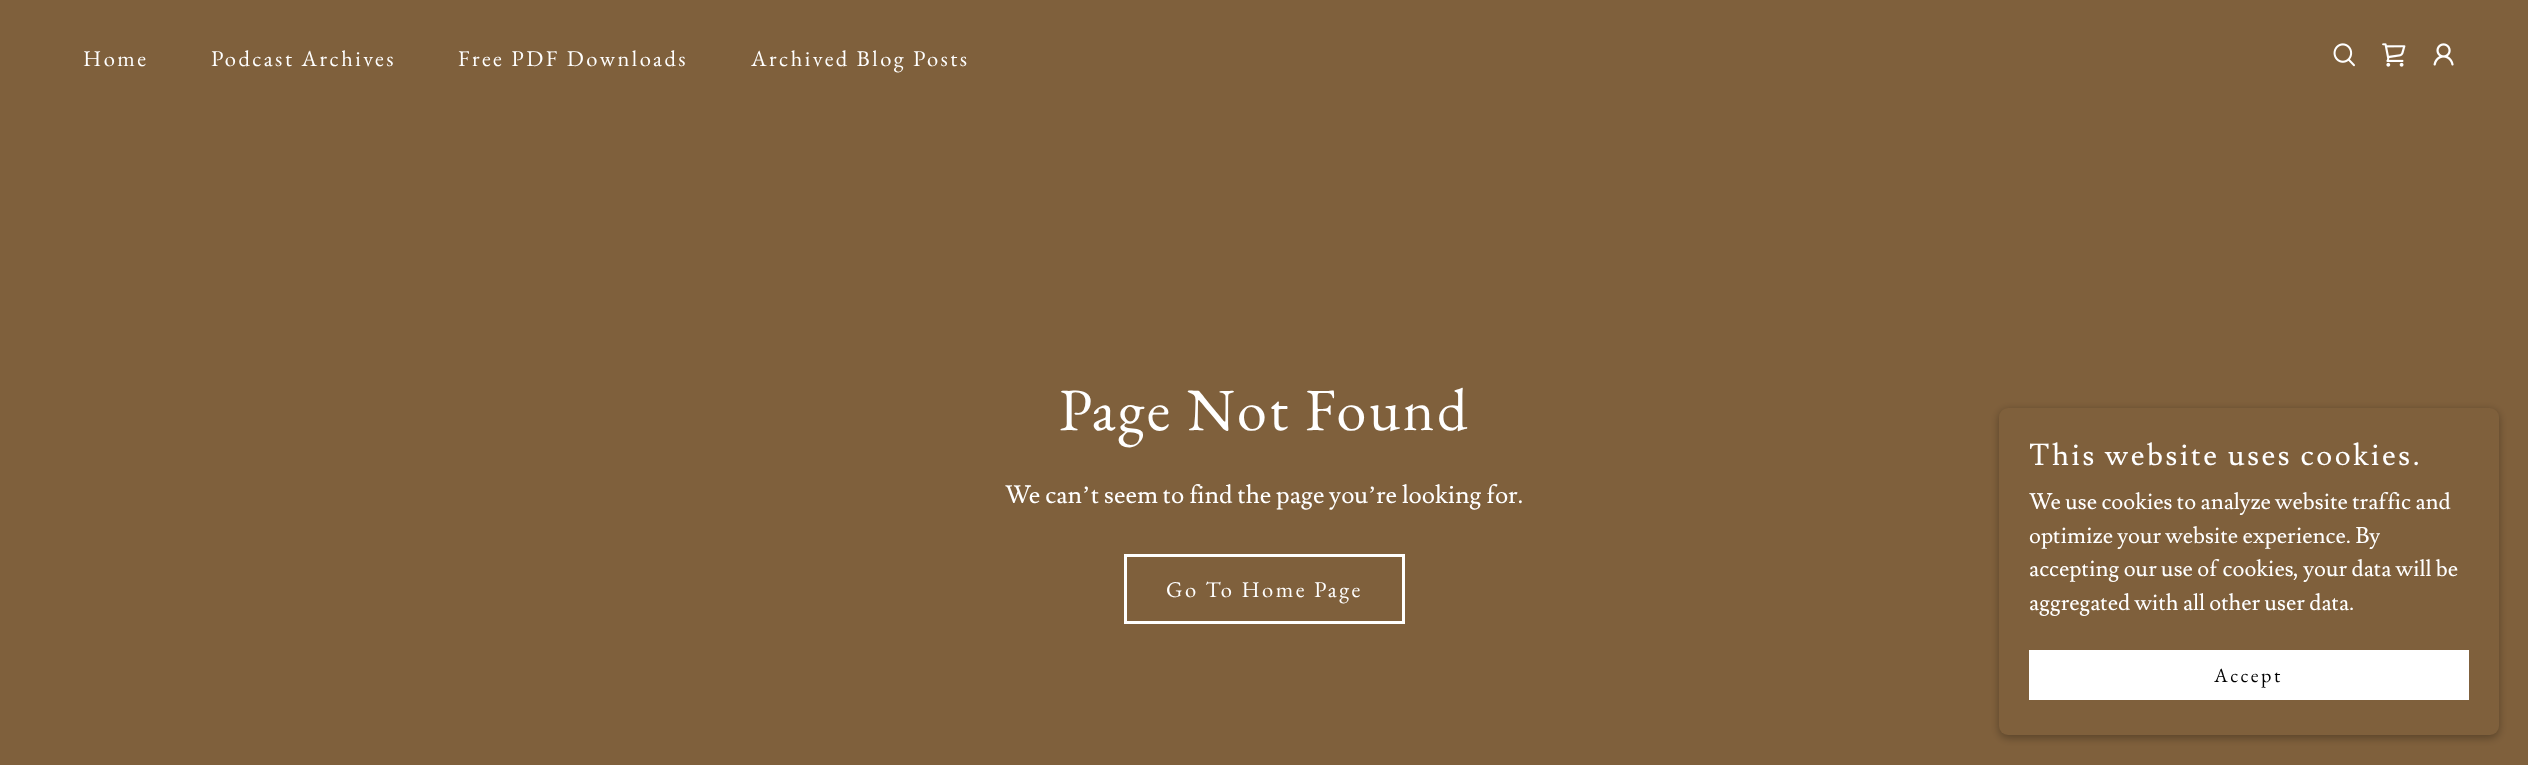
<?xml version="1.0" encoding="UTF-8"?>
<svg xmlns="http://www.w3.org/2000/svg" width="2528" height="765">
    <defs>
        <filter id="blur1" x="-50%" y="-200%" width="200%" height="500%"><feGaussianBlur stdDeviation="4"/></filter>
    </defs>
    <rect width="100%" height="100%" fill="#7F603C"/>
    <text x="83" y="66" font-family="EB Garamond" font-size="22.5" letter-spacing="2.5" fill="#FFFFFF">Home</text>
    <text x="211" y="66" font-family="EB Garamond" font-size="22.5" letter-spacing="2.5" fill="#FFFFFF">Podcast Archives</text>
    <text x="458" y="66" font-family="EB Garamond" font-size="22.5" letter-spacing="2.5" fill="#FFFFFF">Free PDF Downloads</text>
    <text x="751" y="66" font-family="EB Garamond" font-size="22.5" letter-spacing="2.5" fill="#FFFFFF">Archived Blog Posts</text>
    <image x="2333" y="43" width="22" height="24" href="img_01.png"/>
    <image x="2382" y="43" width="24" height="24" href="img_02.png"/>
    <image x="2433" y="43" width="21" height="23" href="img_03.png"/>
    <text x="1059" y="430" font-family="EB Garamond" font-size="60" letter-spacing="2.5" fill="#FFFFFF">Page Not Found</text>
    <text x="1005" y="503" font-family="Lusitana" font-size="25" fill="#FFFFFF">We can</text>
    <text x="1082" y="503" font-family="Liberation Serif" font-size="25" fill="#FFFFFF">’</text>
    <text x="1091" y="503" font-family="Lusitana" font-size="25" fill="#FFFFFF">t seem to find the page you</text>
    <text x="1368" y="503" font-family="Liberation Serif" font-size="25" fill="#FFFFFF">’</text>
    <text x="1376" y="503" font-family="Lusitana" font-size="25" fill="#FFFFFF">re looking for.</text>
    <rect x="1125.5" y="555.5" width="278" height="67" fill="none" stroke="#FFFFFF" stroke-width="3"/>
    <text x="1166" y="597" font-family="EB Garamond" font-size="22.5" letter-spacing="2.5" fill="#FFFFFF">Go To Home Page</text>
    <rect x="1999" y="410" width="500" height="328" rx="9" fill="#000000" fill-opacity="0.3" filter="url(#blur1)"/>
    <rect x="1999" y="408" width="500" height="327" rx="9" fill="#7F603C"/>
    <text x="2029" y="465" font-family="Lusitana" font-size="30" letter-spacing="2.5" fill="#FFFFFF">This website uses cookies.</text>
    <text font-family="Lusitana" font-size="22.5" fill="#FFFFFF">
        <tspan x="2029" y="509">We use cookies to analyze website traffic and</tspan>
        <tspan x="2029" y="543">optimize your website experience. By</tspan>
        <tspan x="2029" y="576">accepting our use of cookies, your data will be</tspan>
        <tspan x="2029" y="610">aggregated with all other user data.</tspan>
    </text>
    <rect x="2029" y="650" width="440" height="50" fill="#FFFFFF"/>
    <text x="2214" y="682" font-family="EB Garamond" font-size="20" letter-spacing="2.5" fill="#000000">Accept</text>
</svg>
